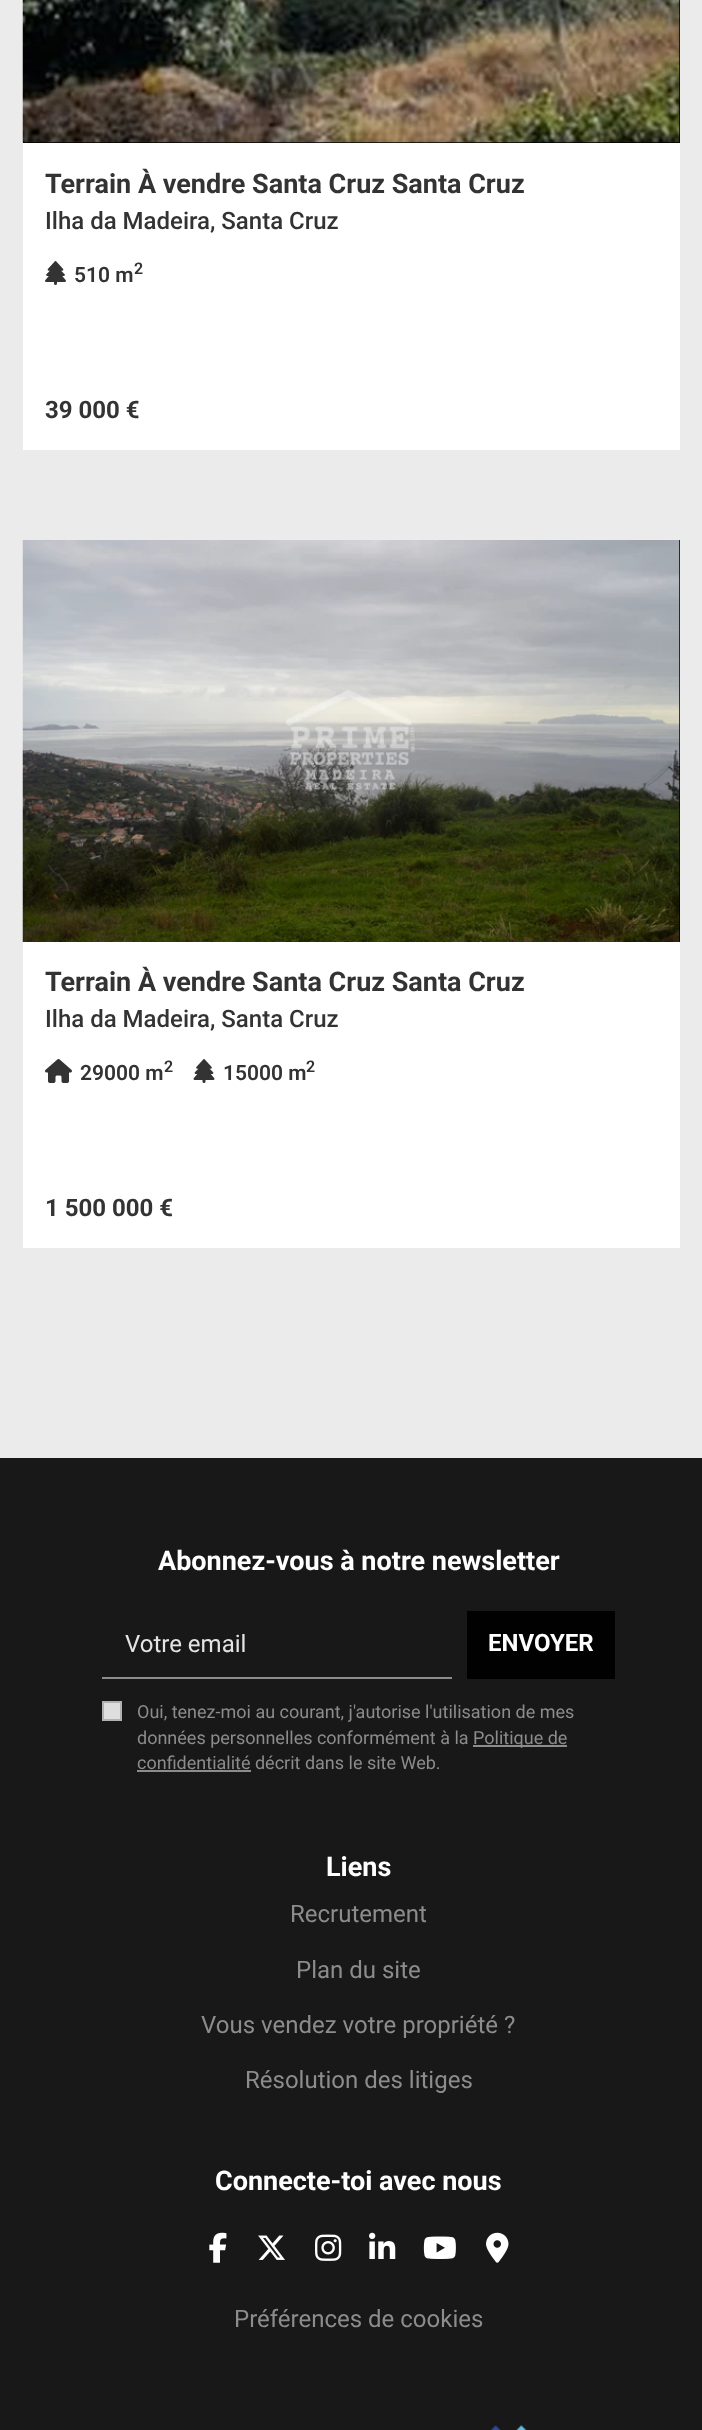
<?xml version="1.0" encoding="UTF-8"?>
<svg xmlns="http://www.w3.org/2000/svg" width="702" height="2430">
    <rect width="100%" height="100%" fill="#EBEBEB"/>
    <rect x="23" y="0" width="657" height="143" fill="#010101"/>
    <image x="22" y="0" width="658" height="143" href="img_01.png"/>
    <rect x="23" y="143" width="657" height="307" fill="#FFFFFF"/>
    <text x="45" y="193" font-family="Roboto" font-size="27" font-weight="700" fill="#333333">Terrain À vendre Santa Cruz Santa Cruz</text>
    <text x="45" y="229" font-family="Roboto" font-size="24" font-weight="500" fill="#333333">Ilha da Madeira, Santa Cruz</text>
    <image x="45" y="261" width="21" height="24" href="img_02.png"/>
    <text x="74" y="282" font-family="Roboto" font-size="21" font-weight="600" fill="#333333">510 m</text>
    <text x="134" y="274" font-family="Roboto" font-size="16" font-weight="600" fill="#333333">2</text>
    <text x="45" y="418" font-family="Roboto" font-size="24" font-weight="700" fill="#333333">39 000 €</text>
    <rect x="679" y="540" width="1" height="402" fill="#010101"/>
    <image x="22" y="540" width="658" height="402" href="img_03.png"/>
    <rect x="23" y="942" width="657" height="306" fill="#FFFFFF"/>
    <text x="45" y="991" font-family="Roboto" font-size="27" font-weight="700" fill="#333333">Terrain À vendre Santa Cruz Santa Cruz</text>
    <text x="45" y="1027" font-family="Roboto" font-size="24" font-weight="500" fill="#333333">Ilha da Madeira, Santa Cruz</text>
    <image x="45" y="1059" width="27" height="24" href="img_04.png"/>
    <text x="80" y="1080" font-family="Roboto" font-size="21" font-weight="600" fill="#333333">29000 m</text>
    <text x="164" y="1072" font-family="Roboto" font-size="16" font-weight="600" fill="#333333">2</text>
    <image x="193" y="1059" width="22" height="24" href="img_05.png"/>
    <text x="223" y="1080" font-family="Roboto" font-size="21" font-weight="600" fill="#333333">15000 m</text>
    <text x="306" y="1072" font-family="Roboto" font-size="16" font-weight="600" fill="#333333">2</text>
    <text x="45" y="1216" font-family="Roboto" font-size="24" font-weight="700" fill="#333333">1 500 000 €</text>
    <rect x="0" y="1458" width="702" height="972" fill="#181818"/>
    <text x="158" y="1570" font-family="Roboto" font-size="27" font-weight="700" fill="#FFFFFF">Abonnez-vous à notre newsletter</text>
    <rect x="102" y="1677" width="350" height="2" fill="#8C8C8C"/>
    <text x="125" y="1652" font-family="Roboto" font-size="24" fill="#E4E4E4">Votre email</text>
    <rect x="467" y="1611" width="148" height="68" fill="#010101"/>
    <text x="488" y="1651" font-family="Roboto" font-size="24" font-weight="700" fill="#FFFFFF">ENVOYER</text>
    <rect x="103" y="1702" width="18" height="18" fill="#DEDEDE" stroke="#B1B1B1" stroke-width="2"/>
    <text font-family="Roboto" font-size="18" fill="#8C8C8C">
        <tspan x="137" y="1718">Oui, tenez-moi au courant, j'autorise l'utilisation de mes</tspan>
        <tspan x="137" y="1744">données personnelles conformément à la</tspan>
    </text>
    <rect x="473" y="1745" width="94" height="2" fill="#8C8C8C"/>
    <text x="473" y="1744" font-family="Roboto" font-size="18" fill="#8C8C8C">Politique de</text>
    <text x="137" y="1769" font-family="Roboto" font-size="18" fill="#8C8C8C">confidentialité décrit dans le site Web.</text>
    <rect x="137" y="1770" width="114" height="2" fill="#8C8C8C"/>
    <text x="326" y="1876" font-family="Roboto" font-size="27" font-weight="700" fill="#FFFFFF">Liens</text>
    <text x="290" y="1922" font-family="Roboto" font-size="24" fill="#8C8C8C">Recrutement</text>
    <text x="296" y="1978" font-family="Roboto" font-size="24" fill="#8C8C8C">Plan du site</text>
    <text x="201" y="2033" font-family="Roboto" font-size="24" fill="#8C8C8C">Vous vendez votre propriété ?</text>
    <text x="245" y="2088" font-family="Roboto" font-size="24" fill="#8C8C8C">Résolution des litiges</text>
    <text x="215" y="2190" font-family="Roboto" font-size="27" font-weight="700" fill="#FFFFFF">Connecte-toi avec nous</text>
    <image x="209" y="2232" width="18" height="31" href="img_06.png"/>
    <image x="258" y="2235" width="27" height="25" href="img_07.png"/>
    <image x="315" y="2234" width="27" height="27" href="img_08.png"/>
    <image x="369" y="2232" width="27" height="27" href="img_09.png"/>
    <image x="423" y="2236" width="33" height="23" href="img_10.png"/>
    <image x="486" y="2232" width="23" height="31" href="img_11.png"/>
    <text x="234" y="2327" font-family="Roboto" font-size="24" fill="#8C8C8C">Préférences de cookies</text>
    <image x="490" y="2425" width="37" height="5" href="img_12.png"/>
</svg>
